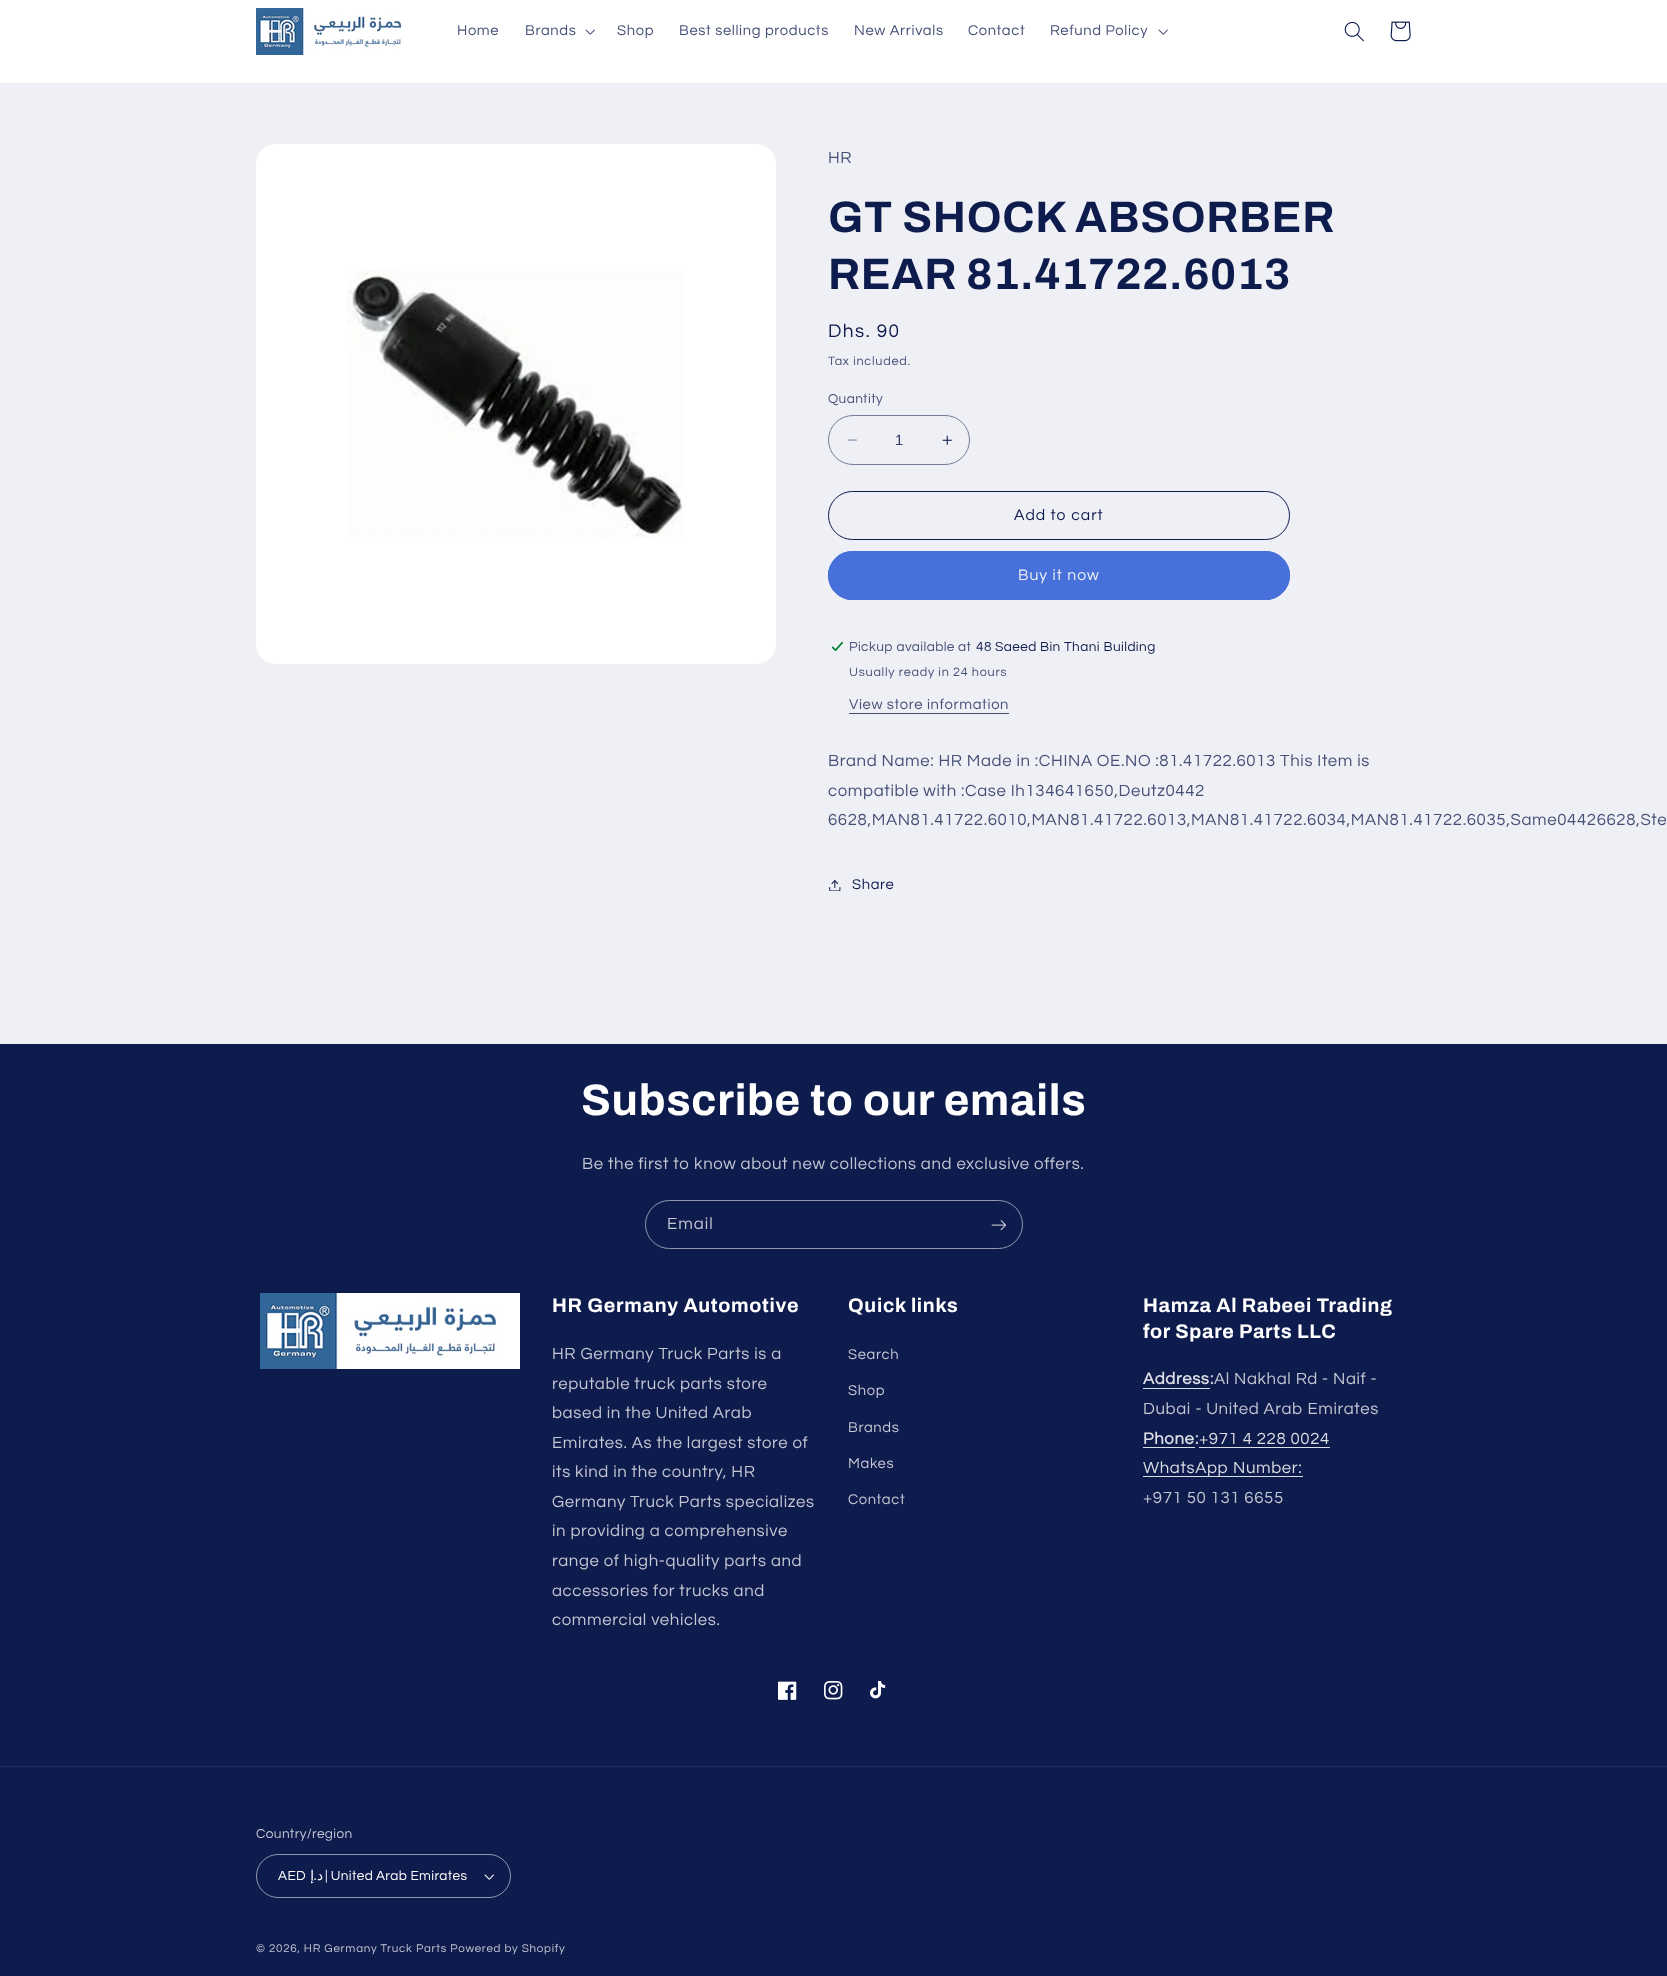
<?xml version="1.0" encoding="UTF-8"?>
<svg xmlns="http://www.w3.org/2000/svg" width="1667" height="1976">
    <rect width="100%" height="100%" fill="#EFF0F5"/>
    <rect x="0" y="0" width="1667" height="83" fill="#FFFFFF"/>
    <rect x="0" y="83" width="1667" height="1" fill="#ECEDF1"/>
    <image x="256" y="8" width="148" height="47" href="img_01.png"/>
    <text x="457" y="35" font-family="Questrial" font-size="14.75" letter-spacing="0.63" fill="#465077">Home</text>
    <text x="525" y="35" font-family="Questrial" font-size="14.75" letter-spacing="0.63" fill="#465077">Brands</text>
    <image x="585" y="29" width="10" height="6" href="img_02.png"/>
    <text x="617" y="35" font-family="Questrial" font-size="14.75" letter-spacing="0.63" fill="#465077">Shop</text>
    <text x="679" y="35" font-family="Questrial" font-size="14.75" letter-spacing="0.63" fill="#465077">Best selling products</text>
    <text x="854" y="35" font-family="Questrial" font-size="14.75" letter-spacing="0.63" fill="#465077">New Arrivals</text>
    <text x="968" y="35" font-family="Questrial" font-size="14.75" letter-spacing="0.63" fill="#465077">Contact</text>
    <text x="1050" y="35" font-family="Questrial" font-size="14.75" letter-spacing="0.63" fill="#465077">Refund Policy</text>
    <image x="1158" y="29" width="10" height="6" href="img_02.png"/>
    <image x="1344" y="21" width="20" height="21" href="img_03.png"/>
    <image x="1390" y="21" width="21" height="21" href="img_04.png"/>
    <image x="256" y="144" width="520" height="520" href="img_05.png"/>
    <text x="828" y="163" font-family="Questrial" font-size="16.8" letter-spacing="0.63" fill="#465077">HR</text>
    <text font-family="Archivo" font-size="44" font-weight="700" letter-spacing="0.7" fill="#0E1B4D">
        <tspan x="828" y="232">GT SHOCK ABSORBER</tspan>
        <tspan x="828" y="289">REAR 81.41722.6013</tspan>
    </text>
    <text x="828" y="337" font-family="Questrial" font-size="19" letter-spacing="1.5" fill="#0E1B4D">Dhs. 90</text>
    <text x="828" y="365" font-family="Questrial" font-size="12.6" letter-spacing="0.75" fill="#465077">Tax included.</text>
    <text x="828" y="403" font-family="Questrial" font-size="13.6" letter-spacing="0.4" fill="#465077">Quantity</text>
    <image x="847" y="439" width="10" height="2" href="img_06.png"/>
    <image x="942" y="435" width="10" height="10" href="img_07.png"/>
    <rect x="828.5" y="415.5" width="141" height="49" rx="24.5" fill="none" stroke="#737B99"/>
    <text x="895" y="445" font-family="Liberation Sans" font-size="14.75" fill="#303B66">1</text>
    <rect x="828.5" y="491.5" width="461" height="48" rx="24" fill="none" stroke="#0E1B4D"/>
    <text x="1014" y="520" font-family="Questrial" font-size="15.75" letter-spacing="1" fill="#0E1B4D">Add to cart</text>
    <rect x="828" y="551" width="462" height="49" rx="24.5" fill="#4770DB"/>
    <rect x="828.5" y="551.5" width="461" height="48" rx="24" fill="none" stroke="#4770DB"/>
    <text x="1018" y="580" font-family="Questrial" font-size="15.75" letter-spacing="1" fill="#EFF0F5">Buy it now</text>
    <image x="831" y="641" width="13" height="11" href="img_08.png"/>
    <text x="849" y="651" font-family="Questrial" font-size="13.6" letter-spacing="0.4" fill="#465077">Pickup available at</text>
    <text x="976" y="651" font-family="Questrial" font-size="13.6" letter-spacing="0.4" fill="#0E1B4D">48 Saeed Bin Thani Building</text>
    <text x="849" y="676" font-family="Questrial" font-size="12.6" letter-spacing="0.75" fill="#465077">Usually ready in 24 hours</text>
    <text x="849" y="709" font-family="Questrial" font-size="14.75" letter-spacing="0.63" fill="#465077">View store information</text>
    <rect x="849" y="713" width="160" height="1" fill="#465077"/>
    <text font-family="Questrial" font-size="16.8" letter-spacing="0.63" fill="#465077">
        <tspan x="828" y="766">Brand Name: HR Made in :CHINA OE.NO :81.41722.6013 This Item is</tspan>
        <tspan x="828" y="796">compatible with :Case Ih134641650,Deutz0442</tspan>
        <tspan x="828" y="825">6628,MAN81.41722.6010,MAN81.41722.6013,MAN81.41722.6034,MAN81.41722.6035,Same04426628,Ste</tspan>
    </text>
    <image x="829" y="880" width="12" height="11" href="img_09.png"/>
    <text x="852" y="889" font-family="Questrial" font-size="14.75" letter-spacing="0.63" fill="#0E1B4D">Share</text>
    <rect x="0" y="1044" width="1667" height="932" fill="#0E1B4D"/>
    <text x="581" y="1115" font-family="Archivo" font-size="44" font-weight="700" letter-spacing="0.7" fill="#FFFFFF">Subscribe to our emails</text>
    <text x="582" y="1169" font-family="Questrial" font-size="16.8" letter-spacing="0.63" fill="#C3C6D3">Be the first to know about new collections and exclusive offers.</text>
    <rect x="645.5" y="1200.5" width="377" height="48" rx="24" fill="none" stroke="#9398AF"/>
    <text x="667" y="1229" font-family="Questrial" font-size="16.8" letter-spacing="1" fill="#C3C6D3">Email</text>
    <image x="991" y="1220" width="15" height="11" href="img_10.png"/>
    <image x="260" y="1293" width="260" height="76" href="img_11.png"/>
    <text x="552" y="1312" font-family="Archivo" font-size="19.75" font-weight="700" letter-spacing="0.7" fill="#FFFFFF">HR Germany Automotive</text>
    <text font-family="Questrial" font-size="16.8" letter-spacing="0.63" fill="#C3C6D3">
        <tspan x="552" y="1359">HR Germany Truck Parts is a</tspan>
        <tspan x="552" y="1389">reputable truck parts store</tspan>
        <tspan x="552" y="1418">based in the United Arab</tspan>
        <tspan x="552" y="1448">Emirates. As the largest store of</tspan>
        <tspan x="552" y="1477">its kind in the country, HR</tspan>
        <tspan x="552" y="1507">Germany Truck Parts specializes</tspan>
        <tspan x="552" y="1536">in providing a comprehensive</tspan>
        <tspan x="552" y="1566">range of high-quality parts and</tspan>
        <tspan x="552" y="1596">accessories for trucks and</tspan>
        <tspan x="552" y="1625">commercial vehicles.</tspan>
    </text>
    <text x="848" y="1312" font-family="Archivo" font-size="19.75" font-weight="700" letter-spacing="0.7" fill="#FFFFFF">Quick links</text>
    <text x="848" y="1359" font-family="Questrial" font-size="14.75" letter-spacing="0.63" fill="#C3C6D3">Search</text>
    <text x="848" y="1395" font-family="Questrial" font-size="14.75" letter-spacing="0.63" fill="#C3C6D3">Shop</text>
    <text x="848" y="1432" font-family="Questrial" font-size="14.75" letter-spacing="0.63" fill="#C3C6D3">Brands</text>
    <text x="848" y="1468" font-family="Questrial" font-size="14.75" letter-spacing="0.63" fill="#C3C6D3">Makes</text>
    <text x="848" y="1504" font-family="Questrial" font-size="14.75" letter-spacing="0.63" fill="#C3C6D3">Contact</text>
    <text font-family="Archivo" font-size="19.75" font-weight="700" letter-spacing="0.7" fill="#FFFFFF">
        <tspan x="1143" y="1312">Hamza Al Rabeei Trading</tspan>
        <tspan x="1143" y="1338">for Spare Parts LLC</tspan>
    </text>
    <text x="1143" y="1384" font-family="Questrial" font-size="16.8" font-weight="700" letter-spacing="0.63" fill="#DBDDE4">Address</text>
    <rect x="1143" y="1388" width="67" height="1" fill="#DBDDE4"/>
    <text x="1210" y="1384" font-family="Questrial" font-size="16.8" font-weight="700" letter-spacing="0.63" fill="#C3C6D3">:</text>
    <text x="1214" y="1384" font-family="Questrial" font-size="16.8" letter-spacing="0.63" fill="#C3C6D3">Al Nakhal Rd - Naif -</text>
    <text x="1143" y="1414" font-family="Questrial" font-size="16.8" letter-spacing="0.63" fill="#C3C6D3">Dubai - United Arab Emirates</text>
    <text x="1143" y="1444" font-family="Questrial" font-size="16.8" font-weight="700" letter-spacing="0.63" fill="#DBDDE4">Phone</text>
    <rect x="1143" y="1447" width="52" height="1" fill="#DBDDE4"/>
    <text x="1195" y="1444" font-family="Questrial" font-size="16.8" font-weight="700" letter-spacing="0.63" fill="#C3C6D3">:</text>
    <text x="1199" y="1444" font-family="Questrial" font-size="16.8" letter-spacing="0.63" fill="#DBDDE4">+971 4 228 0024</text>
    <rect x="1199" y="1447" width="131" height="1" fill="#DBDDE4"/>
    <rect x="1143" y="1476" width="160" height="1" fill="#DBDDE4"/>
    <text x="1143" y="1473" font-family="Questrial" font-size="16.8" letter-spacing="0.63" fill="#DBDDE4">WhatsApp Number:</text>
    <text x="1143" y="1503" font-family="Questrial" font-size="16.8" letter-spacing="0.63" fill="#C3C6D3">+971 50 131 6655</text>
    <image x="778" y="1681" width="19" height="19" href="img_12.png"/>
    <image x="824" y="1681" width="19" height="19" href="img_13.png"/>
    <image x="870" y="1681" width="16" height="18" href="img_14.png"/>
    <rect x="0" y="1766" width="1667" height="1" fill="#212D5B"/>
    <text x="256" y="1838" font-family="Questrial" font-size="13.6" letter-spacing="0.4" fill="#C3C6D3">Country/region</text>
    <image x="484" y="1874" width="10" height="6" href="img_15.png"/>
    <rect x="256.5" y="1854.5" width="254" height="43" rx="21.5" fill="none" stroke="#9398AF"/>
    <text x="278" y="1880" font-family="Questrial" font-size="13.6" letter-spacing="0.4" fill="#FFFFFF">AED</text>
    <text x="314" y="1880" font-family="DejaVu Sans" font-size="13.6" letter-spacing="0.4" direction="rtl" fill="#FFFFFF">إ</text>
    <text x="317" y="1880" font-family="Questrial" font-size="13.6" letter-spacing="0.4" direction="rtl" fill="#FFFFFF">.</text>
    <text x="323" y="1880" font-family="DejaVu Sans" font-size="13.6" letter-spacing="0.4" direction="rtl" fill="#FFFFFF">د</text>
    <text x="325" y="1880" word-spacing="-0.5" font-family="Questrial" font-size="13.6" letter-spacing="0.4" fill="#FFFFFF">| United Arab Emirates</text>
    <text x="256" y="1952" font-family="Questrial" font-size="11.55" letter-spacing="0.75" fill="#C3C6D3">© 2026, HR Germany Truck Parts Powered by Shopify</text>
</svg>
